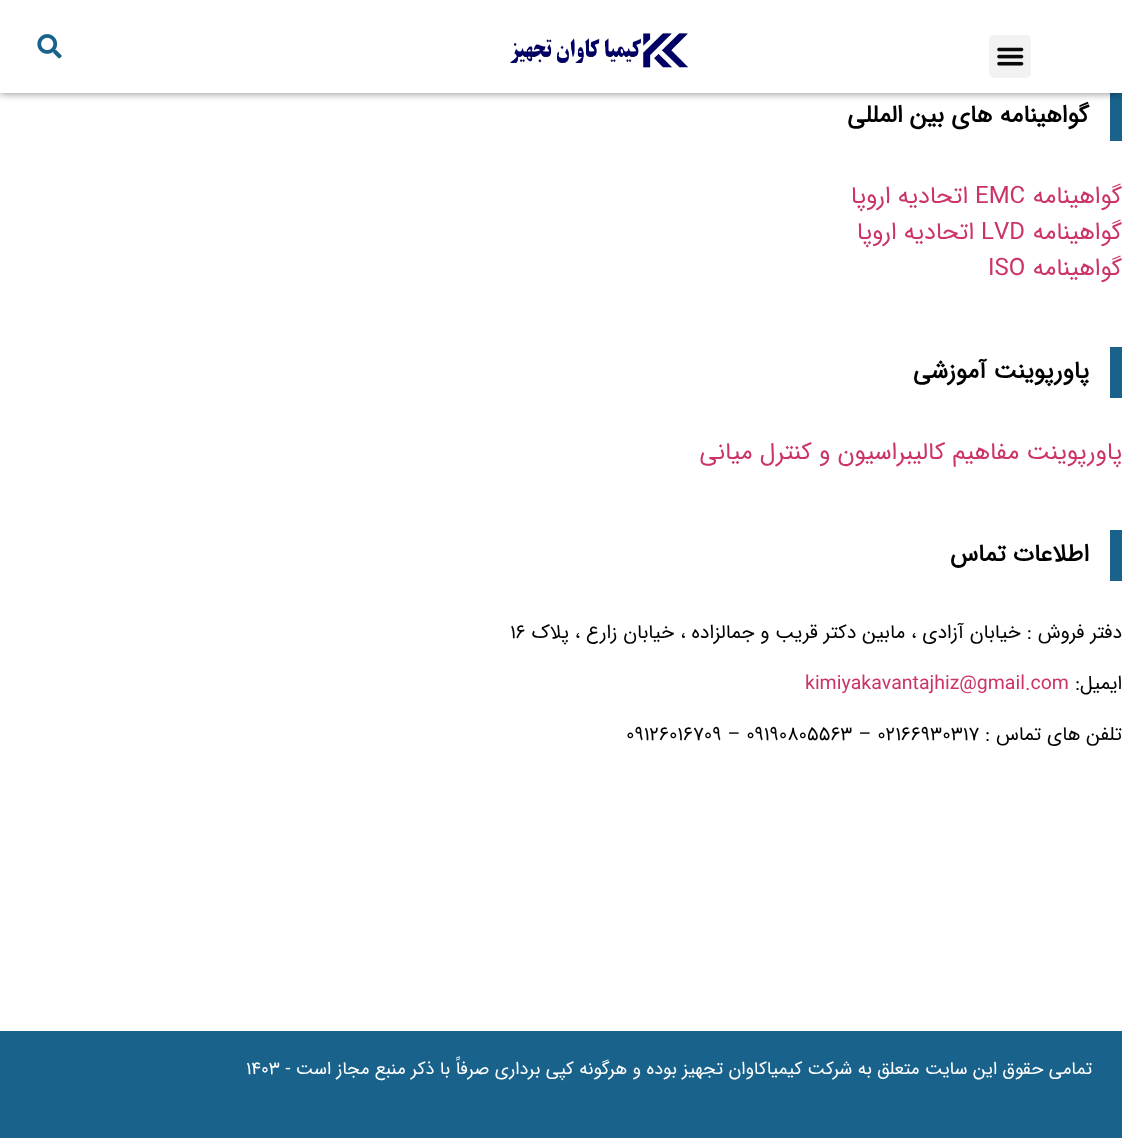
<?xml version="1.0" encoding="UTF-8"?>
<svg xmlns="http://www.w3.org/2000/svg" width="1122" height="1138">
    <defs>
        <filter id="blur1" x="-50%" y="-200%" width="200%" height="500%"><feGaussianBlur stdDeviation="4"/></filter>
    </defs>
    <rect width="100%" height="100%" fill="#FFFFFF"/>
    <rect x="1110" y="93" width="12" height="48" fill="#19628B"/>
    <rect x="0" y="0" width="1122" height="93" fill="#000000" fill-opacity="0.5" filter="url(#blur1)"/>
    <rect x="0" y="0" width="1122" height="93" fill="#FFFFFF"/>
    <rect x="989" y="35" width="42" height="43" rx="5" fill="#F2F2F2"/>
    <image x="997" y="47" width="27" height="19" href="img_01.png"/>
    <image x="510" y="32" width="179" height="36" href="img_02.png"/>
    <image x="37" y="34" width="25" height="25" href="img_03.png"/>
    <text x="1089" y="122" font-family="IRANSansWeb" font-size="24" font-weight="700" direction="rtl" fill="#000000">گواهینامه های بین المللی</text>
    <text x="1122" y="203" font-family="IRANSansWeb" font-size="24" direction="rtl" fill="#CC3366">گواهینامه</text>
    <text x="975" y="203" font-family="IRANSansWeb" font-size="24" fill="#CC3366">EMC</text>
    <text x="968" y="203" font-family="IRANSansWeb" font-size="24" direction="rtl" fill="#CC3366">اتحادیه اروپا</text>
    <text x="1122" y="239" font-family="IRANSansWeb" font-size="24" direction="rtl" fill="#CC3366">گواهینامه</text>
    <text x="981" y="239" font-family="IRANSansWeb" font-size="24" fill="#CC3366">LVD</text>
    <text x="974" y="239" font-family="IRANSansWeb" font-size="24" direction="rtl" fill="#CC3366">اتحادیه اروپا</text>
    <text x="1122" y="275" font-family="IRANSansWeb" font-size="24" direction="rtl" fill="#CC3366">گواهینامه</text>
    <text x="988" y="275" font-family="IRANSansWeb" font-size="24" fill="#CC3366">ISO</text>
    <rect x="1110" y="347" width="12" height="51" fill="#19628B"/>
    <text x="1089" y="378" font-family="IRANSansWeb" font-size="24" font-weight="700" direction="rtl" fill="#000000">پاورپوینت آموزشی</text>
    <text x="1122" y="459" font-family="IRANSansWeb" font-size="24" direction="rtl" fill="#CC3366">پاورپوینت مفاهیم کالیبراسیون و کنترل میانی</text>
    <rect x="1110" y="530" width="12" height="51" fill="#19628B"/>
    <text x="1089" y="561" font-family="IRANSansWeb" font-size="24" font-weight="700" direction="rtl" fill="#000000">اطلاعات تماس</text>
    <text x="1122" y="638" font-family="IRANSansWeb" font-size="19.5" direction="rtl" fill="#000000">دفتر فروش : خیابان آزادی ، مابین دکتر قریب و جمالزاده ، خیابان زارع ، پلاک</text>
    <text x="510" y="638" font-family="IRANSansWeb" font-size="19.5" fill="#000000">۱۶</text>
    <text x="1122" y="689" font-family="IRANSansWeb" font-size="19.5" direction="rtl" fill="#000000">ایمیل:</text>
    <text x="805" y="689" font-family="IRANSansWeb" font-size="19.5" fill="#CC3366">kimiyakavantajhiz@gmail.com</text>
    <text x="1122" y="740" font-family="IRANSansWeb" font-size="19.5" direction="rtl" fill="#000000">تلفن های تماس :</text>
    <text x="626" y="740" font-family="IRANSansWeb" font-size="19.5" fill="#000000">۰۹۱۲۶۰۱۶۷۰۹ – ۰۹۱۹۰۸۰۵۵۶۳ – ۰۲۱۶۶۹۳۰۳۱۷</text>
    <rect x="0" y="1031" width="1122" height="107" fill="#19628B"/>
    <text x="1092" y="1074" font-family="IRANSansWeb" font-size="18" direction="rtl" fill="#FFFFFF">تمامی حقوق این سایت متعلق به شرکت کیمیاکاوان تجهیز بوده و هرگونه کپی برداری صرفاً با ذکر منبع مجاز است -</text>
    <text x="246" y="1074" font-family="IRANSansWeb" font-size="18" fill="#FFFFFF">۱۴۰۳</text>
</svg>
